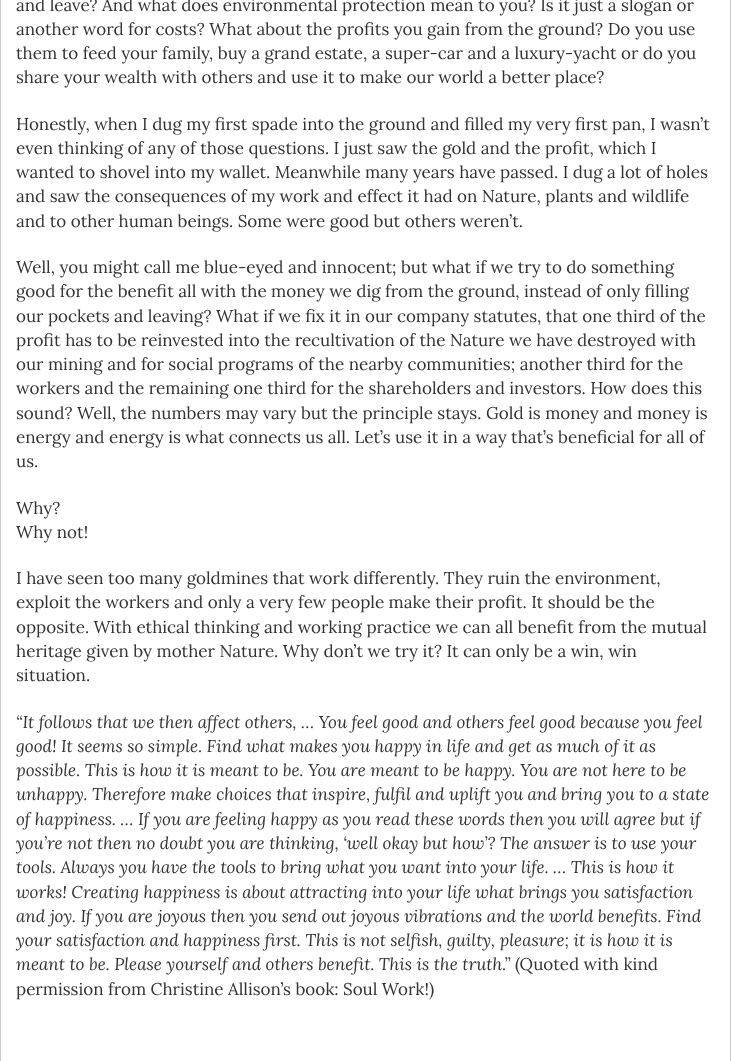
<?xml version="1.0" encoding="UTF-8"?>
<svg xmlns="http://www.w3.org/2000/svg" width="731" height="1061">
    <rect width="100%" height="100%" fill="#FFFFFF"/>
    <rect x="730" y="0" width="1" height="1061" fill="#CCCCCC"/>
    <rect x="0" y="0" width="1" height="1061" fill="#CCCCCC"/>
    <text font-family="Lora" font-size="17" fill="#333333">
        <tspan x="16" y="11">and leave? And what does environmental protection mean to you? Is it just a slogan or</tspan>
        <tspan x="16" y="35">another word for costs? What about the profits you gain from the ground? Do you use</tspan>
        <tspan x="16" y="59">them to feed your family, buy a grand estate, a super-car and a luxury-yacht or do you</tspan>
        <tspan x="16" y="83">share your wealth with others and use it to make our world a better place?</tspan>
    </text>
    <text font-family="Lora" font-size="17" fill="#333333">
        <tspan x="16" y="130">Honestly, when I dug my first spade into the ground and filled my very first pan, I wasn’t</tspan>
        <tspan x="16" y="154">even thinking of any of those questions. I just saw the gold and the profit, which I</tspan>
        <tspan x="16" y="178">wanted to shovel into my wallet. Meanwhile many years have passed. I dug a lot of holes</tspan>
        <tspan x="16" y="202">and saw the consequences of my work and effect it had on Nature, plants and wildlife</tspan>
        <tspan x="16" y="227">and to other human beings. Some were good but others weren’t.</tspan>
    </text>
    <text font-family="Lora" font-size="17" fill="#333333">
        <tspan x="16" y="273">Well, you might call me blue-eyed and innocent; but what if we try to do something</tspan>
        <tspan x="16" y="297">good for the benefit all with the money we dig from the ground, instead of only filling</tspan>
        <tspan x="16" y="322">our pockets and leaving? What if we fix it in our company statutes, that one third of the</tspan>
        <tspan x="16" y="346">profit has to be reinvested into the recultivation of the Nature we have destroyed with</tspan>
        <tspan x="16" y="370">our mining and for social programs of the nearby communities; another third for the</tspan>
        <tspan x="16" y="394">workers and the remaining one third for the shareholders and investors. How does this</tspan>
        <tspan x="16" y="419">sound? Well, the numbers may vary but the principle stays. Gold is money and money is</tspan>
        <tspan x="16" y="443">energy and energy is what connects us all. Let’s use it in a way that’s beneficial for all of</tspan>
        <tspan x="16" y="467">us.</tspan>
    </text>
    <text font-family="Lora" font-size="17" fill="#333333">
        <tspan x="16" y="514">Why?</tspan>
        <tspan x="16" y="538">Why not!</tspan>
    </text>
    <text font-family="Lora" font-size="17" fill="#333333">
        <tspan x="16" y="584">I have seen too many goldmines that work differently. They ruin the environment,</tspan>
        <tspan x="16" y="608">exploit the workers and only a very few people make their profit. It should be the</tspan>
        <tspan x="16" y="633">opposite. With ethical thinking and working practice we can all benefit from the mutual</tspan>
        <tspan x="16" y="657">heritage given by mother Nature. Why don’t we try it? It can only be a win, win</tspan>
        <tspan x="16" y="681">situation.</tspan>
    </text>
    <text font-family="Lora" font-size="17" font-style="italic" fill="#333333">
        <tspan x="16" y="728">“It follows that we then affect others, … You feel good and others feel good because you feel</tspan>
        <tspan x="16" y="752">good! It seems so simple. Find what makes you happy in life and get as much of it as</tspan>
        <tspan x="16" y="776">possible. This is how it is meant to be. You are meant to be happy. You are not here to be</tspan>
        <tspan x="16" y="800">unhappy. Therefore make choices that inspire, fulfil and uplift you and bring you to a state</tspan>
        <tspan x="16" y="825">of happiness. … If you are feeling happy as you read these words then you will agree but if</tspan>
        <tspan x="16" y="849">you’re not then no doubt you are thinking, ‘well okay but how’? The answer is to use your</tspan>
        <tspan x="16" y="873">tools. Always you have the tools to bring what you want into your life. … This is how it</tspan>
        <tspan x="16" y="898">works! Creating happiness is about attracting into your life what brings you satisfaction</tspan>
        <tspan x="16" y="922">and joy. If you are joyous then you send out joyous vibrations and the world benefits. Find</tspan>
        <tspan x="16" y="946">your satisfaction and happiness first. This is not selfish, guilty, pleasure; it is how it is</tspan>
        <tspan x="16" y="970">meant to be. Please yourself and others benefit. This is the truth.”</tspan>
    </text>
    <text x="515" y="970" font-family="Lora" font-size="17" fill="#333333">(Quoted with kind</text>
    <text x="16" y="995" font-family="Lora" font-size="17" fill="#333333">permission from Christine Allison’s book: Soul Work!)</text>
</svg>
